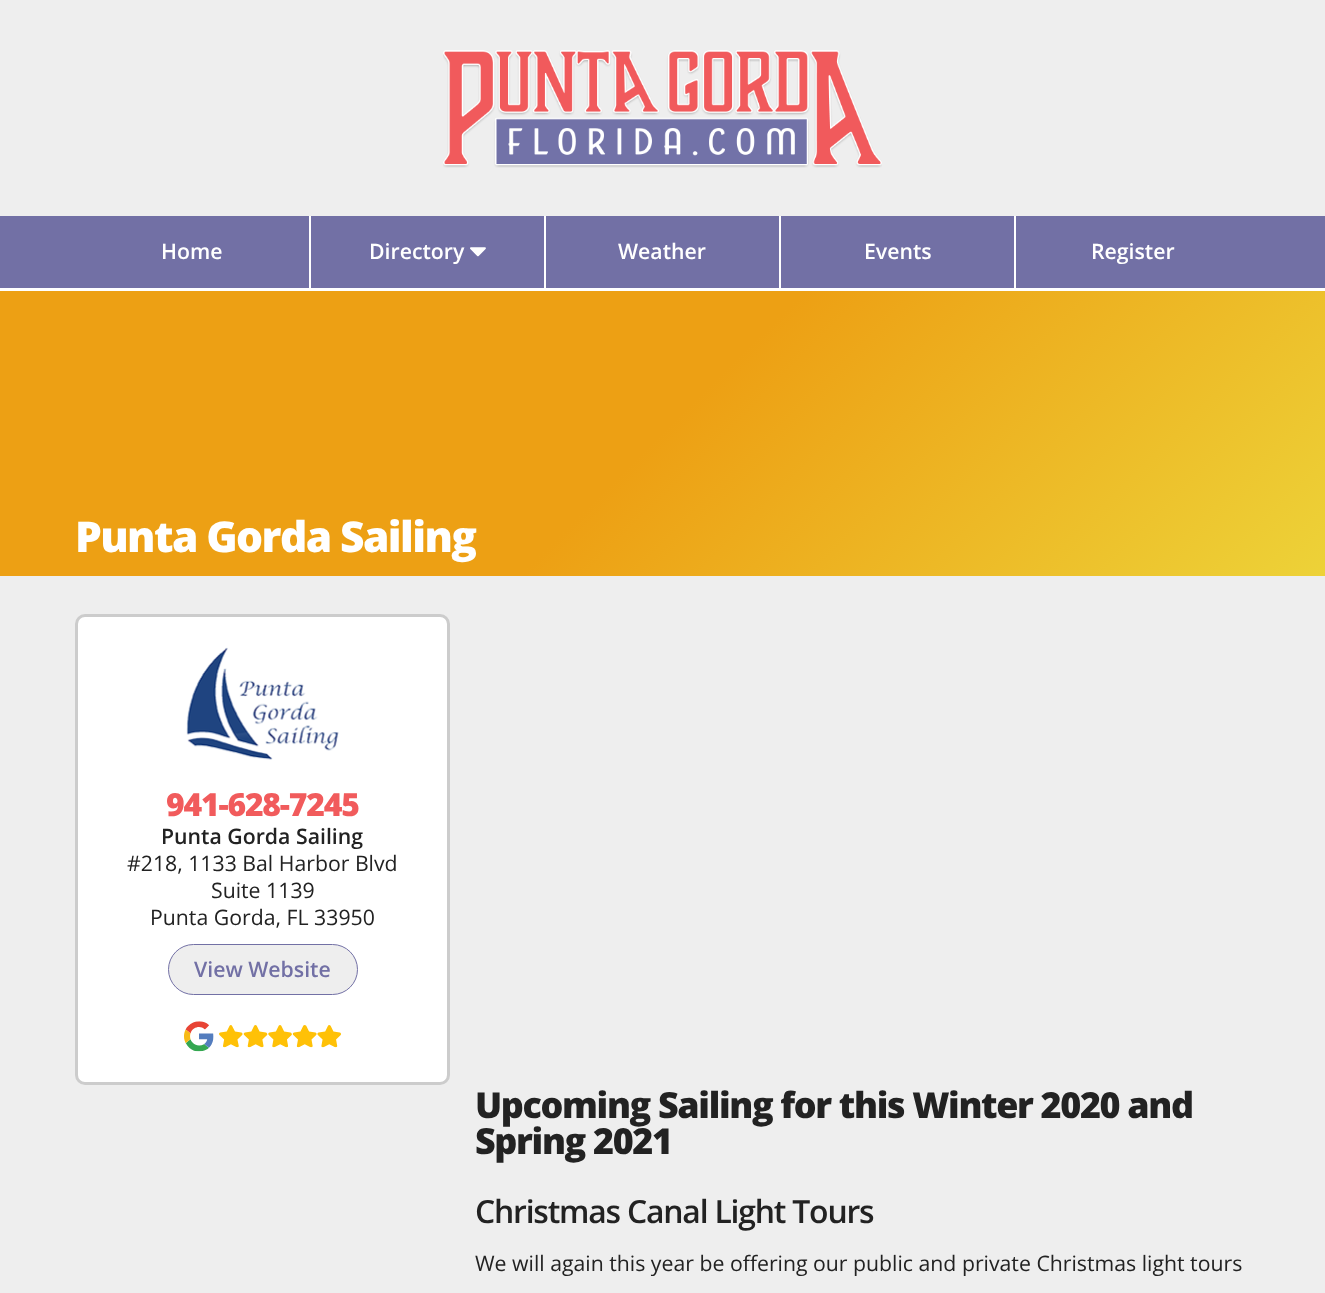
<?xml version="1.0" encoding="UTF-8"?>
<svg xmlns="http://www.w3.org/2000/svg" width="1325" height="1293">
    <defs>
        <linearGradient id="g1" gradientUnits="userSpaceOnUse" x1="260" y1="30" x2="1065" y2="836"><stop offset="0.5" stop-color="#EDA014"/><stop offset="1" stop-color="#EDD238"/></linearGradient>
    </defs>
    <rect width="100%" height="100%" fill="#EEEEEE"/>
    <image x="443" y="50" width="439" height="118" href="img_01.png"/>
    <rect x="0" y="216" width="1325" height="72" fill="#7270A5"/>
    <rect x="309" y="216" width="2" height="72" fill="#FFFFFF"/>
    <text x="161" y="259" font-family="Open Sans" font-size="21.25" font-weight="600" fill="#FFFFFF">Home</text>
    <rect x="544" y="216" width="2" height="72" fill="#FFFFFF"/>
    <text x="369" y="259" font-family="Open Sans" font-size="21.25" font-weight="600" fill="#FFFFFF">Directory</text>
    <image x="470" y="247" width="16" height="10" href="img_02.png"/>
    <rect x="779" y="216" width="2" height="72" fill="#FFFFFF"/>
    <text x="618" y="259" font-family="Open Sans" font-size="21.25" font-weight="600" fill="#FFFFFF">Weather</text>
    <rect x="1014" y="216" width="2" height="72" fill="#FFFFFF"/>
    <text x="864" y="259" font-family="Open Sans" font-size="21.25" font-weight="600" fill="#FFFFFF">Events</text>
    <text x="1091" y="259" font-family="Open Sans" font-size="21.25" font-weight="600" fill="#FFFFFF">Register</text>
    <rect x="0" y="291" width="1325" height="285" fill="url(#g1)"/>
    <rect x="0" y="288" width="1325" height="3" fill="#FFFFFF"/>
    <text x="75" y="552" font-family="Open Sans" font-size="42.5" font-weight="800" letter-spacing="-1.6" fill="#FFFFFF">Punta Gorda Sailing</text>
    <rect x="76.5" y="615.5" width="372" height="468" rx="8.5" fill="#FFFFFF" stroke="#CCCCCC" stroke-width="3"/>
    <image x="186" y="647" width="153" height="113" href="img_03.png"/>
    <text x="166" y="816" font-family="Open Sans" font-size="31.9" font-weight="800" letter-spacing="-1.2" fill="#F15B5C">941-628-7245</text>
    <text x="161" y="844" font-family="Open Sans" font-size="21.25" font-weight="600" fill="#222222">Punta Gorda Sailing</text>
    <text x="127" y="871" font-family="Open Sans" font-size="21.25" fill="#222222">#218, 1133 Bal Harbor Blvd</text>
    <text x="211" y="898" font-family="Open Sans" font-size="21.25" fill="#222222">Suite 1139</text>
    <text x="150" y="925" font-family="Open Sans" font-size="21.25" fill="#222222">Punta Gorda, FL 33950</text>
    <rect x="168.5" y="944.5" width="189" height="50" rx="25" fill="#EEEEEE" stroke="#7270A5"/>
    <text x="194" y="977" font-family="Open Sans" font-size="21.25" font-weight="600" fill="#7270A5">View Website</text>
    <image x="184" y="1021" width="30" height="31" href="img_04.png"/>
    <image x="219" y="1025" width="122" height="23" href="img_05.png"/>
    <text font-family="Open Sans" font-size="35.9" font-weight="800" letter-spacing="-1.35" fill="#222222">
        <tspan x="475" y="1118">Upcoming Sailing for this Winter 2020 and</tspan>
        <tspan x="475" y="1154">Spring 2021</tspan>
    </text>
    <text x="475" y="1223" font-family="Open Sans" font-size="31.9" font-weight="600" letter-spacing="-1.2" fill="#222222">Christmas Canal Light Tours</text>
    <text x="475" y="1271" font-family="Open Sans" font-size="21.25" fill="#222222">We will again this year be offering our public and private Christmas light tours</text>
</svg>
